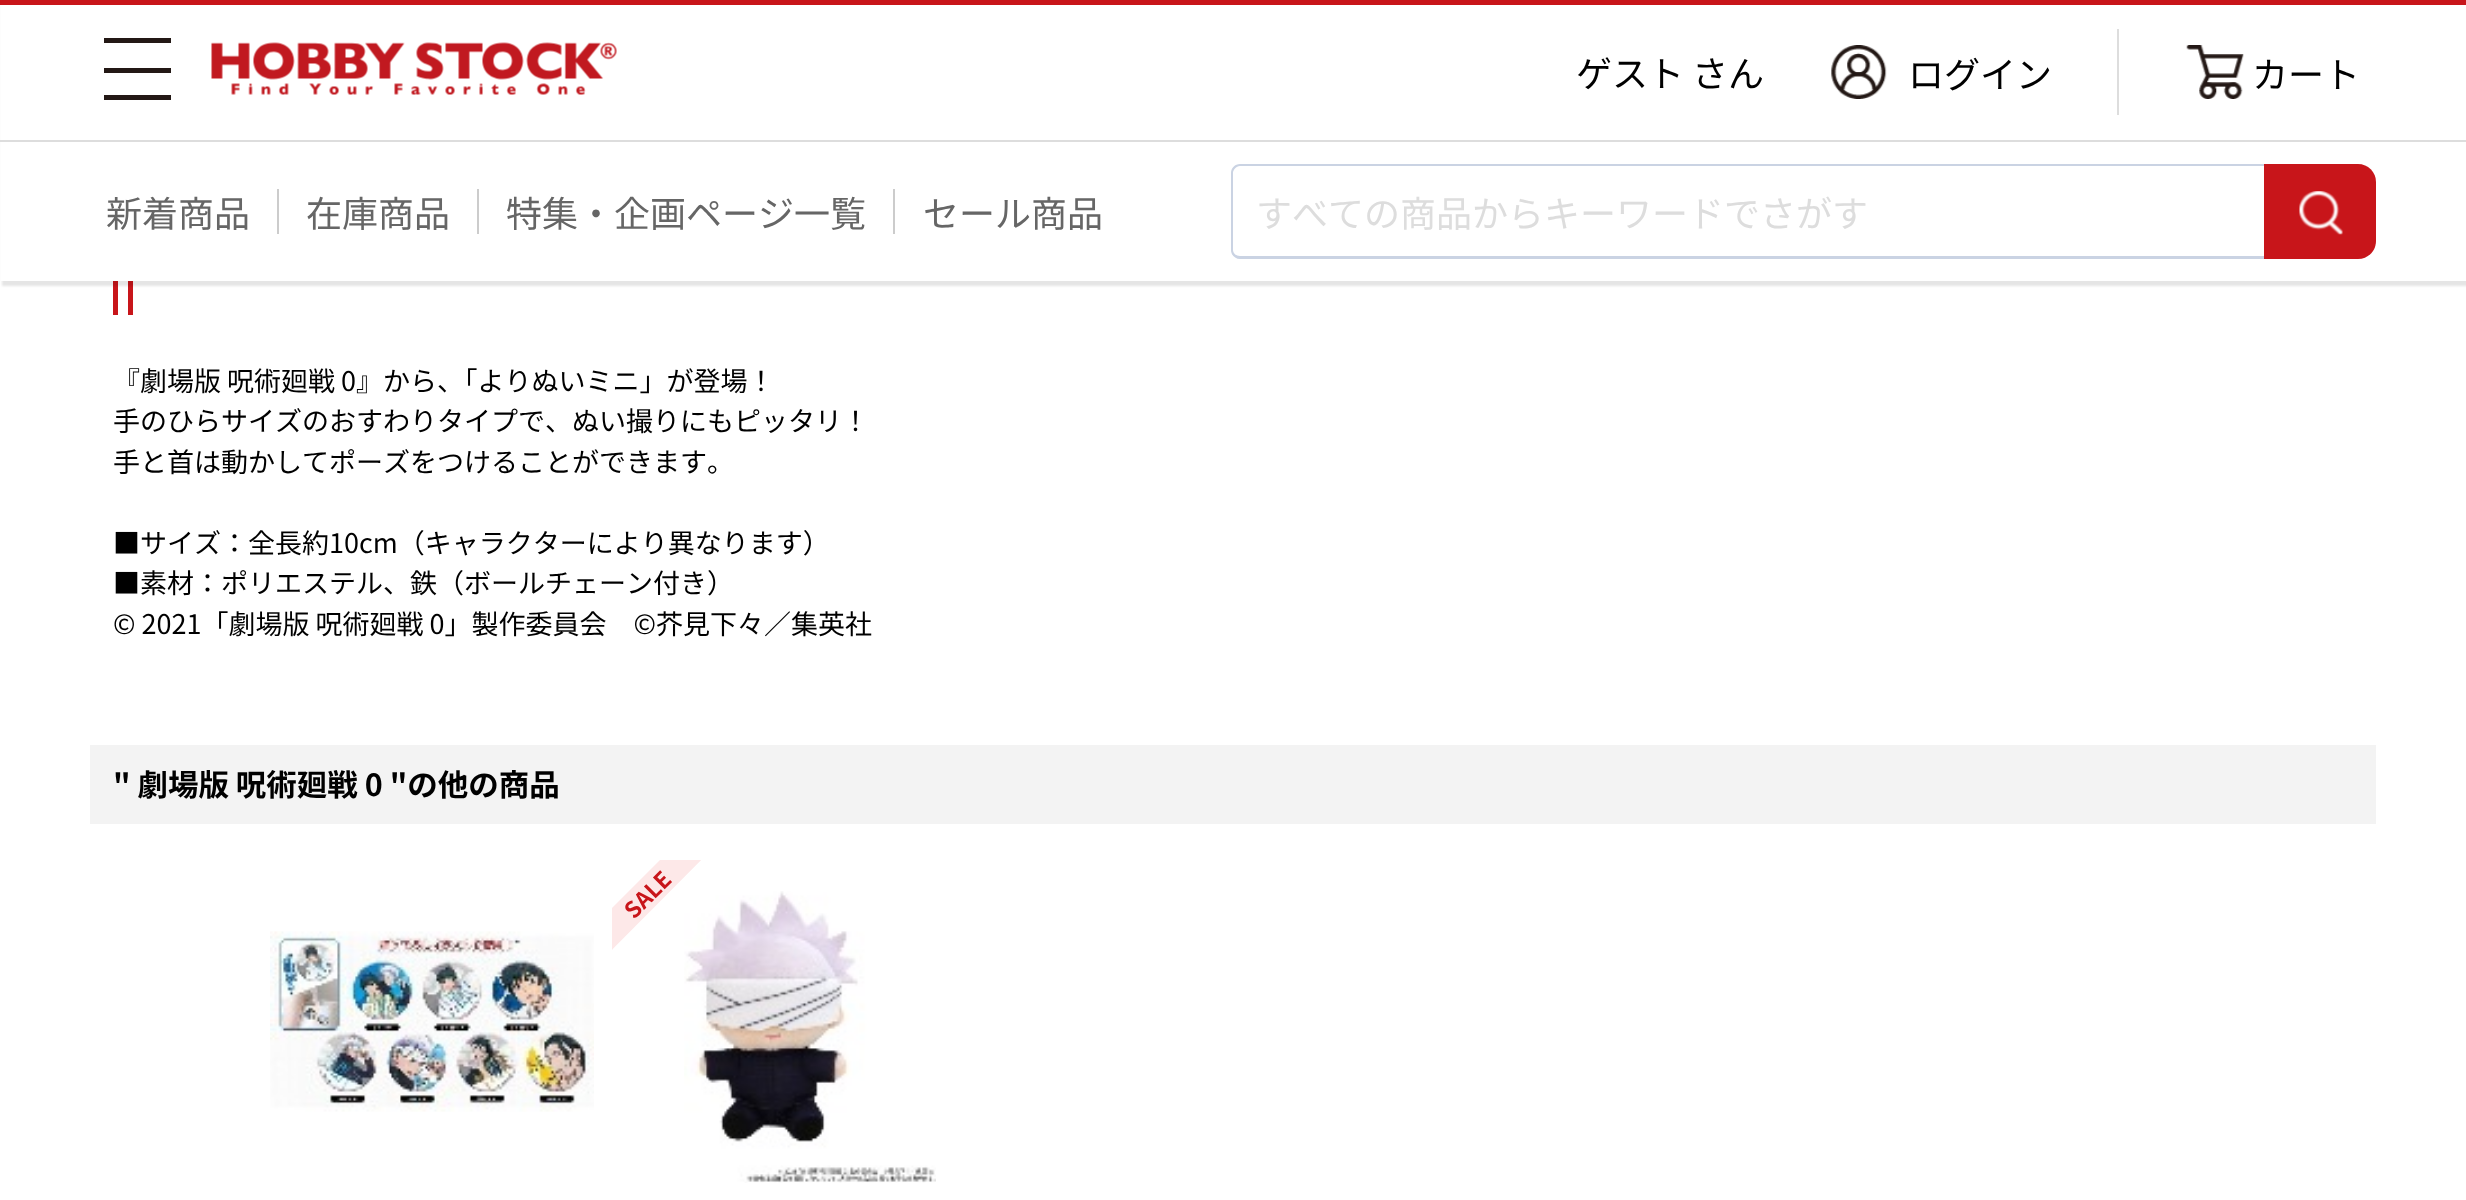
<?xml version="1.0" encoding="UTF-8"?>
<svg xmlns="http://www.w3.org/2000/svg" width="2466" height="1200">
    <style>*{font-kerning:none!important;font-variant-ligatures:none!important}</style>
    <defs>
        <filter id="blur1" x="-50%" y="-200%" width="200%" height="500%"><feGaussianBlur stdDeviation="1"/></filter>
        <clipPath id="clip1"><rect x="612" y="860" width="324" height="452"/></clipPath>
    </defs>
    <rect width="100%" height="100%" fill="#FFFFFF"/>
    <rect x="113" y="281" width="5" height="34" fill="#C8151A"/>
    <rect x="128" y="281" width="5" height="34" fill="#C8151A"/>
    <rect x="2" y="5" width="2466" height="281" fill="#000000" fill-opacity="0.1" filter="url(#blur1)"/>
    <rect x="1" y="5" width="2465" height="276" fill="#FFFFFF"/>
    <rect x="0" y="0" width="2466" height="5" fill="#C8151A"/>
    <rect x="0" y="140" width="2466" height="2" fill="#DDDDDD"/>
    <image x="211" y="42" width="406" height="53" href="img_01.png"/>
    <rect x="104" y="38" width="67" height="5" fill="#231815"/>
    <rect x="104" y="68" width="67" height="5" fill="#231815"/>
    <rect x="104" y="95" width="67" height="5" fill="#231815"/>
    <text x="1576" y="87" font-family="Noto Sans JP" font-size="36" fill="#000000">ゲスト さん</text>
    <image x="1831" y="45" width="56" height="54" href="img_02.png"/>
    <text x="1908" y="88" font-family="Noto Sans JP" font-size="36" fill="#000000">ログイン</text>
    <rect x="2117" y="29" width="2" height="86" fill="#DDDDDD"/>
    <image x="2186" y="45" width="58" height="54" href="img_03.png"/>
    <text x="2252" y="88" font-family="Noto Sans JP" font-size="36" fill="#000000">カート</text>
    <text x="106" y="227" font-family="Noto Sans JP" font-size="36" fill="#666666">新着商品</text>
    <rect x="277" y="189" width="2" height="45" fill="#CCCCCC"/>
    <text x="306" y="227" font-family="Noto Sans JP" font-size="36" fill="#666666">在庫商品</text>
    <rect x="477" y="189" width="2" height="45" fill="#CCCCCC"/>
    <text x="506" y="227" font-family="Noto Sans JP" font-size="36" fill="#666666">特集・企画ページ一覧</text>
    <rect x="893" y="189" width="2" height="45" fill="#CCCCCC"/>
    <text x="923" y="227" font-family="Noto Sans JP" font-size="36" fill="#666666">セール商品</text>
    <path d="M 1240 164 H 2264 V 259 H 1240 C 1235 259 1231 255 1231 250 V 173 C 1231 168 1235 164 1240 164 Z M 1240 166 H 2264 V 256 H 1240 C 1236 256 1233 253 1233 250 V 173 C 1233 170 1236 166 1240 166 Z" fill="#CAD3E3" fill-rule="evenodd"/>
    <text x="1256" y="227" font-family="Noto Sans JP" font-size="36" fill="#DDDDDD">すべての商品からキーワードでさがす</text>
    <path d="M 2264 164 H 2358 C 2368 164 2376 172 2376 182 V 241 C 2376 251 2368 259 2358 259 H 2264 Z" fill="#C8151A"/>
    <image x="2299" y="191" width="44" height="44" href="img_04.png"/>
    <text font-family="Noto Sans JP" font-size="27" fill="#000000">
        <tspan x="113" y="391">『劇場版 呪術廻戦 0』から、「よりぬいミニ」が登場！</tspan>
        <tspan x="113" y="431">手のひらサイズのおすわりタイプで、ぬい撮りにもピッタリ！</tspan>
        <tspan x="113" y="472">手と首は動かしてポーズをつけることができます。</tspan>
    </text>
    <text font-family="Noto Sans JP" font-size="27" fill="#000000">
        <tspan x="113" y="553">■サイズ：全長約10cm（キャラクターにより異なります）</tspan>
        <tspan x="113" y="593">■素材：ポリエステル、鉄（ボールチェーン付き）</tspan>
        <tspan x="113" y="634">© 2021「劇場版 呪術廻戦 0」製作委員会　©芥見下々／集英社</tspan>
    </text>
    <rect x="90" y="745" width="2286" height="79" fill="#F3F3F3"/>
    <text x="113" y="796" font-family="Noto Sans JP" font-size="30.5" font-weight="700" fill="#000000">" 劇場版 呪術廻戦 0 "の他の商品</text>
    <image x="684" y="891" width="252" height="292" href="img_05.png"/>
    <g clip-path="url(#clip1)">
        <path d="M 569 951 L 704 816 L 725 836 L 590 972 Z" fill="#FDE8E8"/>
    </g>
    <text x="634" y="920" transform="rotate(-45 634 920)" font-family="Noto Sans JP" font-size="22.5" font-weight="700" fill="#C8151A">SALE</text>
    <image x="270" y="931" width="324" height="181" href="img_06.png"/>
</svg>
